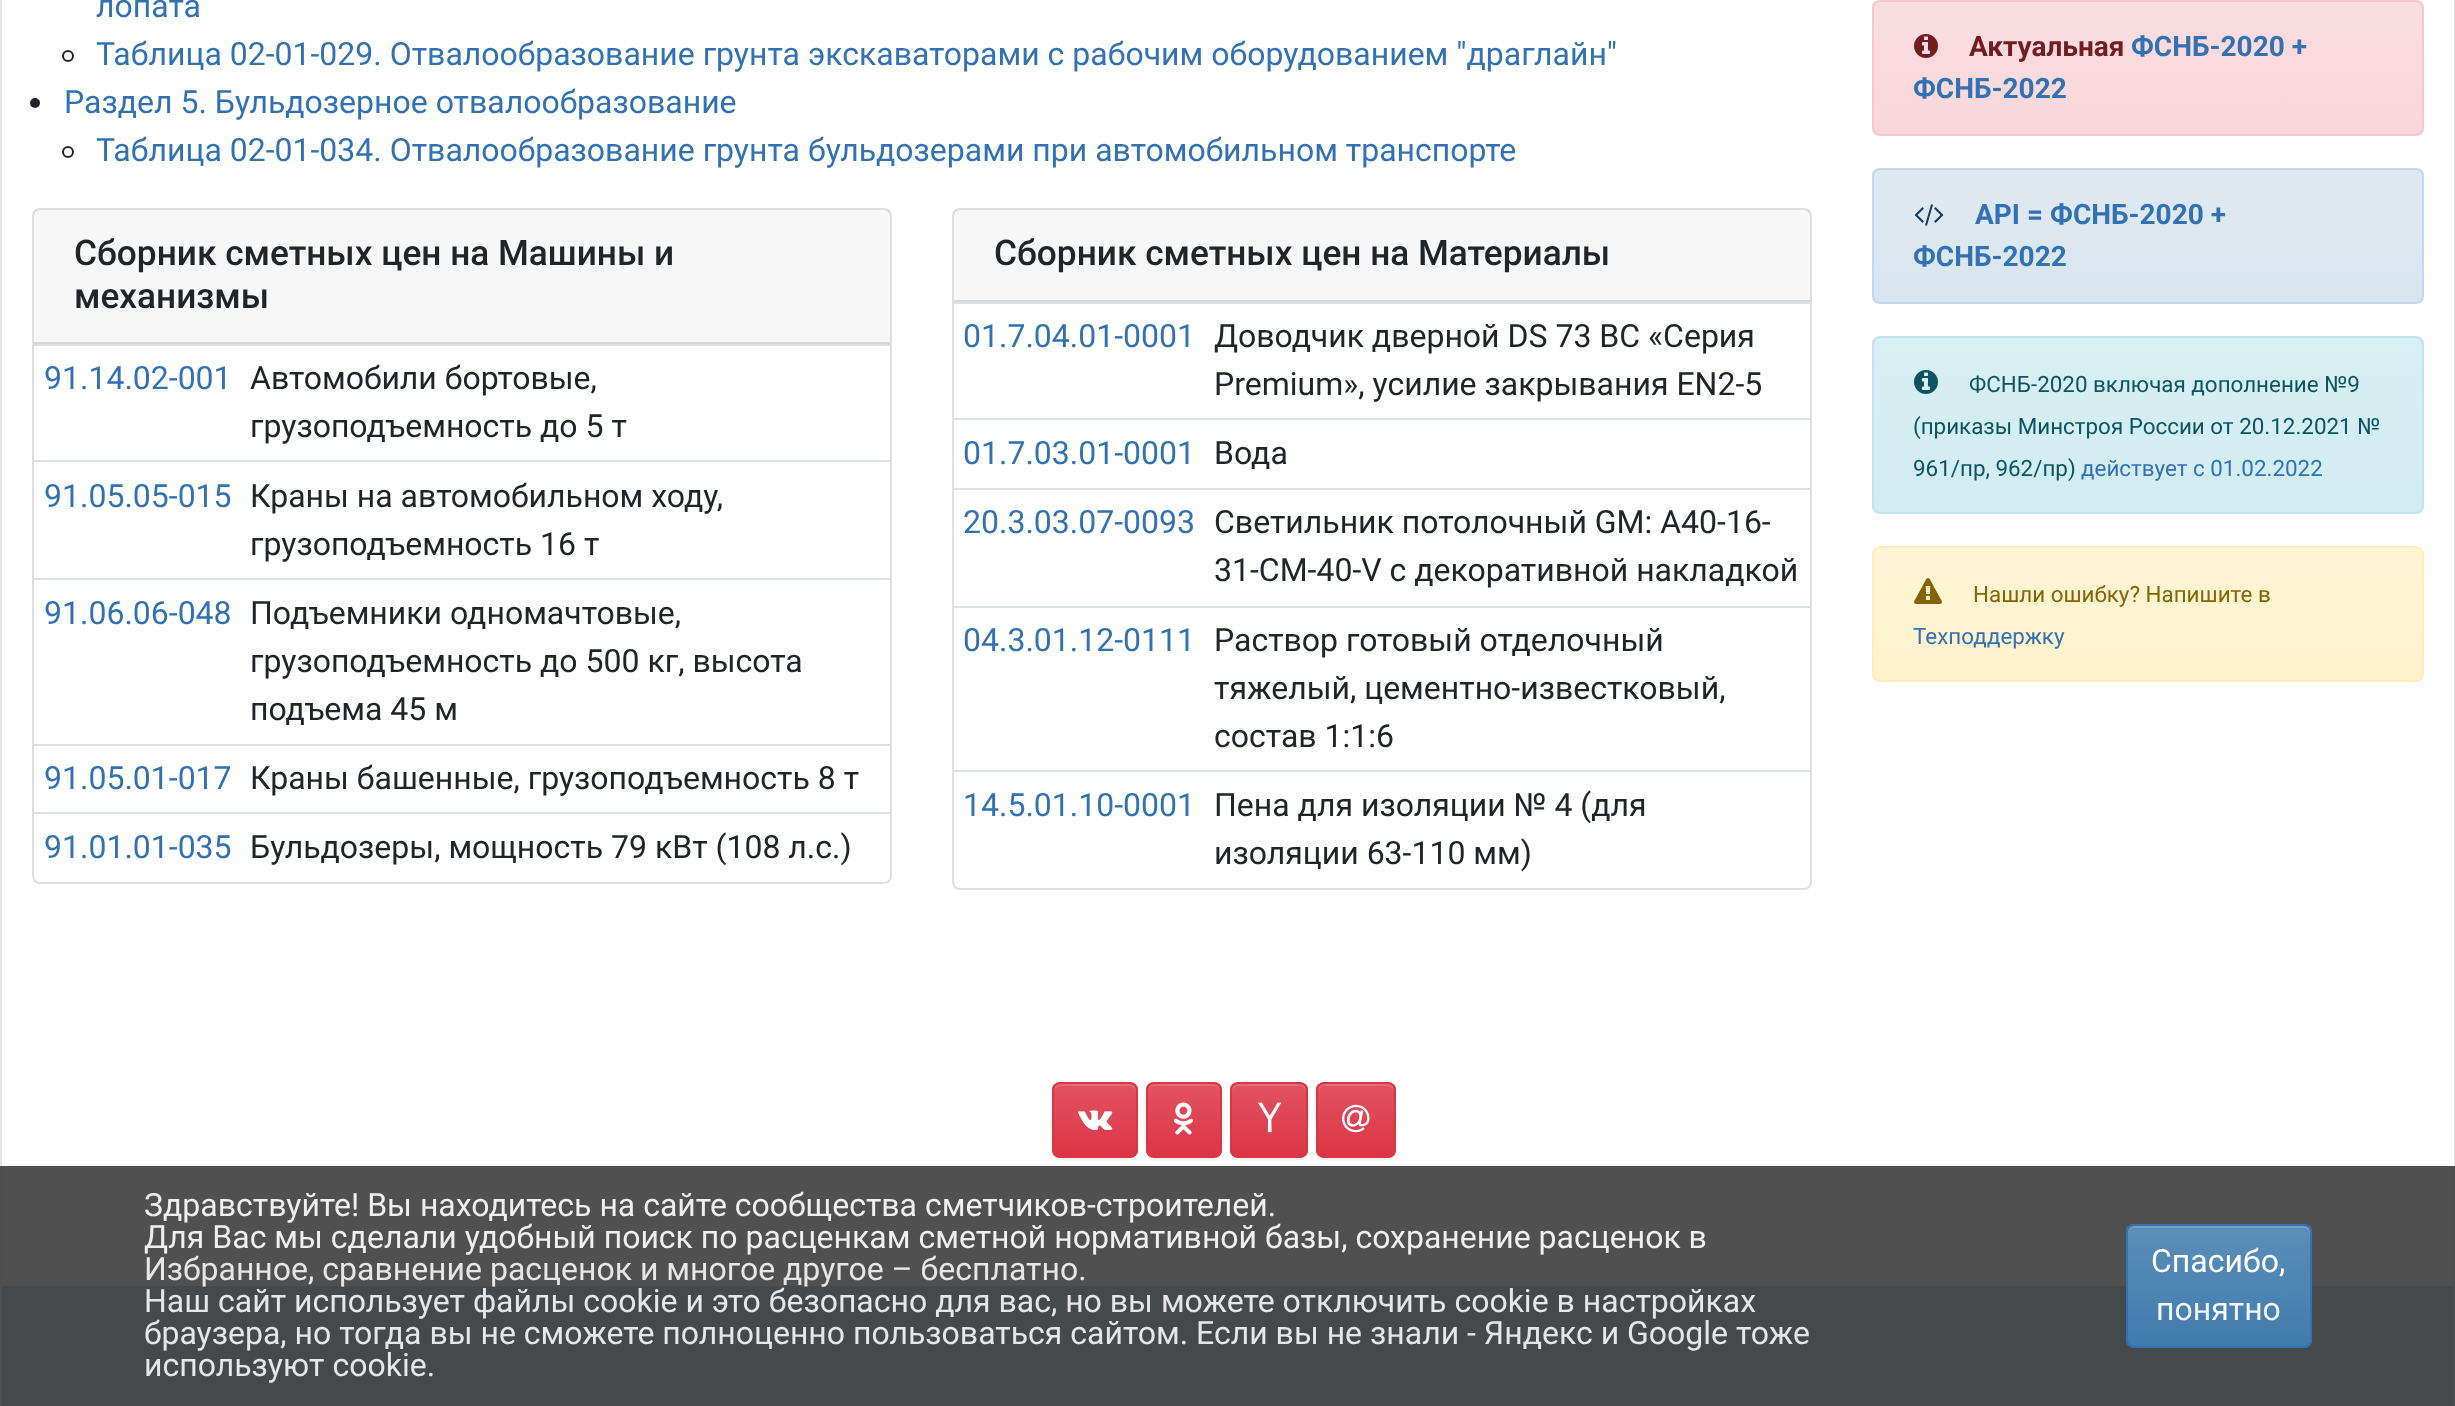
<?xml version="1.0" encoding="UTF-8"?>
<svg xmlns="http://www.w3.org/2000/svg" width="2455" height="1406">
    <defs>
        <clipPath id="clip1"><rect x="1872" y="0" width="552" height="136" rx="8"/></clipPath>
        <linearGradient id="g1" gradientUnits="userSpaceOnUse" x1="2148" y1="2" x2="2148" y2="134"><stop offset="0" stop-color="#F9DDE0"/><stop offset="1" stop-color="#F8D7DA"/></linearGradient>
        <clipPath id="clip2"><rect x="1872" y="168" width="552" height="136" rx="8"/></clipPath>
        <linearGradient id="g2" gradientUnits="userSpaceOnUse" x1="2148" y1="170" x2="2148" y2="302"><stop offset="0" stop-color="#DFE9F1"/><stop offset="1" stop-color="#D9E5EF"/></linearGradient>
        <clipPath id="clip3"><rect x="1872" y="336" width="552" height="178" rx="8"/></clipPath>
        <linearGradient id="g3" gradientUnits="userSpaceOnUse" x1="2148" y1="338" x2="2148" y2="512"><stop offset="0" stop-color="#D8EFF3"/><stop offset="1" stop-color="#D1ECF1"/></linearGradient>
        <clipPath id="clip4"><rect x="1872" y="546" width="552" height="136" rx="8"/></clipPath>
        <linearGradient id="g4" gradientUnits="userSpaceOnUse" x1="2148" y1="548" x2="2148" y2="680"><stop offset="0" stop-color="#FFF5D5"/><stop offset="1" stop-color="#FFF3CD"/></linearGradient>
        <filter id="blur1" x="-50%" y="-200%" width="200%" height="500%"><feGaussianBlur stdDeviation="1"/></filter>
        <clipPath id="clip5"><rect x="1052" y="1082" width="86" height="76" rx="8"/></clipPath>
        <linearGradient id="g5" gradientUnits="userSpaceOnUse" x1="1095" y1="1084" x2="1095" y2="1156"><stop offset="0" stop-color="#E15361"/><stop offset="1" stop-color="#DC3545"/></linearGradient>
        <clipPath id="clip6"><rect x="1146" y="1082" width="76" height="76" rx="8"/></clipPath>
        <linearGradient id="g6" gradientUnits="userSpaceOnUse" x1="1184" y1="1084" x2="1184" y2="1156"><stop offset="0" stop-color="#E15361"/><stop offset="1" stop-color="#DC3545"/></linearGradient>
        <clipPath id="clip7"><rect x="1230" y="1082" width="78" height="76" rx="8"/></clipPath>
        <linearGradient id="g7" gradientUnits="userSpaceOnUse" x1="1269" y1="1084" x2="1269" y2="1156"><stop offset="0" stop-color="#E15361"/><stop offset="1" stop-color="#DC3545"/></linearGradient>
        <clipPath id="clip8"><rect x="1316" y="1082" width="80" height="76" rx="8"/></clipPath>
        <linearGradient id="g8" gradientUnits="userSpaceOnUse" x1="1356" y1="1084" x2="1356" y2="1156"><stop offset="0" stop-color="#E15361"/><stop offset="1" stop-color="#DC3545"/></linearGradient>
        <clipPath id="clip9"><rect x="2126" y="1224" width="186" height="124" rx="8"/></clipPath>
        <linearGradient id="g9" gradientUnits="userSpaceOnUse" x1="2219" y1="1226" x2="2219" y2="1346"><stop offset="0" stop-color="#5E90B9" stop-opacity="0.95"/><stop offset="1" stop-color="#417CAD" stop-opacity="0.95"/></linearGradient>
    </defs>
    <rect width="100%" height="100%" fill="#FFFFFF"/>
    <rect x="2" y="1166" width="2452" height="120" fill="#505050"/>
    <rect x="2454" y="0" width="1" height="1166" fill="#E5E5E5"/>
    <rect x="2454" y="1166" width="1" height="240" fill="#4F4F4F"/>
    <rect x="0" y="0" width="2" height="1166" fill="#E5E5E5"/>
    <rect x="0" y="1166" width="2" height="240" fill="#4F4F4F"/>
    <text x="96" y="17" font-family="Roboto" font-size="32" fill="#3171B4">лопата</text>
    <circle cx="68" cy="56" r="5" fill="none" stroke="#212529" stroke-width="2"/>
    <text x="96" y="65" font-family="Roboto" font-size="32" fill="#3171B4">Таблица 02-01-029. Отвалообразование грунта экскаваторами с рабочим оборудованием "драглайн"</text>
    <circle cx="35" cy="103" r="5" fill="#212529"/>
    <text x="64" y="113" font-family="Roboto" font-size="32" fill="#3171B4">Раздел 5. Бульдозерное отвалообразование</text>
    <circle cx="68" cy="152" r="5" fill="none" stroke="#212529" stroke-width="2"/>
    <text x="96" y="161" font-family="Roboto" font-size="32" fill="#3171B4">Таблица 02-01-034. Отвалообразование грунта бульдозерами при автомобильном транспорте</text>
    <rect x="33" y="209" width="858" height="674" rx="7" fill="none" stroke="#DFDFDF" stroke-width="2"/>
    <rect x="34" y="210" width="856" height="132" fill="#000000" fill-opacity="0.03"/>
    <rect x="34" y="342" width="856" height="2" fill="#D8D8D8"/>
    <text font-family="Roboto" font-size="35.25" font-weight="500" fill="#212529">
        <tspan x="74" y="265">Сборник сметных цен на Машины и</tspan>
        <tspan x="74" y="308">механизмы</tspan>
    </text>
    <text x="44" y="389" font-family="Roboto" font-size="32" fill="#3171B4">91.14.02-001</text>
    <rect x="34" y="344" width="856" height="2" fill="#DEE2E6"/>
    <text font-family="Roboto" font-size="32" fill="#212529">
        <tspan x="250" y="389">Автомобили бортовые,</tspan>
        <tspan x="250" y="437">грузоподъемность до 5 т</tspan>
    </text>
    <text x="44" y="507" font-family="Roboto" font-size="32" fill="#3171B4">91.05.05-015</text>
    <rect x="34" y="460" width="856" height="2" fill="#DEE2E6"/>
    <text font-family="Roboto" font-size="32" fill="#212529">
        <tspan x="250" y="507">Краны на автомобильном ходу,</tspan>
        <tspan x="250" y="555">грузоподъемность 16 т</tspan>
    </text>
    <text x="44" y="624" font-family="Roboto" font-size="32" fill="#3171B4">91.06.06-048</text>
    <rect x="34" y="578" width="856" height="2" fill="#DEE2E6"/>
    <text font-family="Roboto" font-size="32" fill="#212529">
        <tspan x="250" y="624">Подъемники одномачтовые,</tspan>
        <tspan x="250" y="672">грузоподъемность до 500 кг, высота</tspan>
        <tspan x="250" y="720">подъема 45 м</tspan>
    </text>
    <text x="44" y="789" font-family="Roboto" font-size="32" fill="#3171B4">91.05.01-017</text>
    <rect x="34" y="744" width="856" height="2" fill="#DEE2E6"/>
    <text x="250" y="789" font-family="Roboto" font-size="32" fill="#212529">Краны башенные, грузоподъемность 8 т</text>
    <text x="44" y="858" font-family="Roboto" font-size="32" fill="#3171B4">91.01.01-035</text>
    <rect x="34" y="812" width="856" height="2" fill="#DEE2E6"/>
    <text x="250" y="858" font-family="Roboto" font-size="32" fill="#212529">Бульдозеры, мощность 79 кВт (108 л.с.)</text>
    <rect x="953" y="209" width="858" height="680" rx="7" fill="none" stroke="#DFDFDF" stroke-width="2"/>
    <rect x="954" y="210" width="856" height="90" fill="#000000" fill-opacity="0.03"/>
    <rect x="954" y="300" width="856" height="2" fill="#D8D8D8"/>
    <text x="994" y="265" font-family="Roboto" font-size="35.25" font-weight="500" fill="#212529">Сборник сметных цен на Материалы</text>
    <text x="963" y="347" font-family="Roboto" font-size="32" fill="#3171B4">01.7.04.01-0001</text>
    <rect x="952" y="302" width="858" height="2" fill="#DEE2E6"/>
    <text font-family="Roboto" font-size="32" fill="#212529">
        <tspan x="1214" y="347">Доводчик дверной DS 73 BC «Серия</tspan>
        <tspan x="1214" y="395">Premium», усилие закрывания EN2-5</tspan>
    </text>
    <text x="963" y="464" font-family="Roboto" font-size="32" fill="#3171B4">01.7.03.01-0001</text>
    <rect x="952" y="418" width="858" height="2" fill="#DEE2E6"/>
    <text x="1214" y="464" font-family="Roboto" font-size="32" fill="#212529">Вода</text>
    <text x="963" y="533" font-family="Roboto" font-size="32" fill="#3171B4">20.3.03.07-0093</text>
    <rect x="952" y="488" width="858" height="2" fill="#DEE2E6"/>
    <text font-family="Roboto" font-size="32" fill="#212529">
        <tspan x="1214" y="533">Светильник потолочный GM: A40-16-</tspan>
        <tspan x="1214" y="581">31-CM-40-V с декоративной накладкой</tspan>
    </text>
    <text x="963" y="651" font-family="Roboto" font-size="32" fill="#3171B4">04.3.01.12-0111</text>
    <rect x="952" y="606" width="858" height="2" fill="#DEE2E6"/>
    <text font-family="Roboto" font-size="32" fill="#212529">
        <tspan x="1214" y="651">Раствор готовый отделочный</tspan>
        <tspan x="1214" y="699">тяжелый, цементно-известковый,</tspan>
        <tspan x="1214" y="747">состав 1:1:6</tspan>
    </text>
    <text x="963" y="816" font-family="Roboto" font-size="32" fill="#3171B4">14.5.01.10-0001</text>
    <rect x="952" y="770" width="858" height="2" fill="#DEE2E6"/>
    <text font-family="Roboto" font-size="32" fill="#212529">
        <tspan x="1214" y="816">Пена для изоляции № 4 (для</tspan>
        <tspan x="1214" y="864">изоляции 63-110 мм)</tspan>
    </text>
    <g clip-path="url(#clip1)">
        <rect x="1872" y="2" width="552" height="132" fill="url(#g1)"/>
    </g>
    <rect x="1873" y="1" width="550" height="134" rx="7" fill="none" stroke="#F5C6CB" stroke-width="2"/>
    <image x="1914" y="34" width="24" height="24" href="img_01.png"/>
    <text x="1969" y="56" font-family="Roboto" font-size="28" font-weight="700" fill="#721C24">Актуальная</text>
    <text x="2131" y="56" font-family="Roboto" font-size="28" font-weight="700" fill="#3171B4">ФСНБ-2020 +</text>
    <text x="1913" y="98" font-family="Roboto" font-size="28" font-weight="700" fill="#3171B4">ФСНБ-2022</text>
    <g clip-path="url(#clip2)">
        <rect x="1872" y="170" width="552" height="132" fill="url(#g2)"/>
    </g>
    <rect x="1873" y="169" width="550" height="134" rx="7" fill="none" stroke="#C5D7EA" stroke-width="2"/>
    <image x="1914" y="204" width="30" height="22" href="img_02.png"/>
    <text x="1975" y="224" font-family="Roboto" font-size="28" font-weight="700" fill="#3171B4">API = ФСНБ-2020 +</text>
    <text x="1913" y="266" font-family="Roboto" font-size="28" font-weight="700" fill="#3171B4">ФСНБ-2022</text>
    <g clip-path="url(#clip3)">
        <rect x="1872" y="338" width="552" height="174" fill="url(#g3)"/>
    </g>
    <rect x="1873" y="337" width="550" height="176" rx="7" fill="none" stroke="#BEE5EB" stroke-width="2"/>
    <image x="1914" y="370" width="24" height="24" href="img_03.png"/>
    <text x="1969" y="392" font-family="Roboto" font-size="22.4" fill="#0C5460">ФСНБ-2020 включая дополнение №9</text>
    <text font-family="Roboto" font-size="22.4" fill="#0C5460">
        <tspan x="1913" y="434">(приказы Минстроя России от 20.12.2021 №</tspan>
        <tspan x="1913" y="476">961/пр, 962/пр)</tspan>
    </text>
    <text x="2081" y="476" font-family="Roboto" font-size="22.4" fill="#3171B4">действует с 01.02.2022</text>
    <g clip-path="url(#clip4)">
        <rect x="1872" y="548" width="552" height="132" fill="url(#g4)"/>
    </g>
    <rect x="1873" y="547" width="550" height="134" rx="7" fill="none" stroke="#FFEEBA" stroke-width="2"/>
    <image x="1914" y="578" width="28" height="26" href="img_04.png"/>
    <text x="1973" y="602" font-family="Roboto" font-size="22.4" fill="#856404">Нашли ошибку? Напишите в</text>
    <text x="1913" y="644" font-family="Roboto" font-size="22.4" fill="#3171B4">Техподдержку</text>
    <rect x="1052" y="1084" width="86" height="76" rx="8" fill="#000000" fill-opacity="0.07" filter="url(#blur1)"/>
    <g clip-path="url(#clip5)">
        <rect x="1052" y="1084" width="86" height="72" fill="url(#g5)"/>
    </g>
    <path d="M 1060 1086 H 1130 C 1133 1086 1136 1089 1136 1092 C 1136 1081 1127 1084 1118 1084 H 1072 C 1063 1084 1054 1081 1054 1092 C 1054 1089 1057 1086 1060 1086 Z" fill="#E66C78"/>
    <rect x="1053" y="1083" width="84" height="74" rx="7" fill="none" stroke="#DC3545" stroke-width="2"/>
    <image x="1078" y="1110" width="35" height="20" href="img_05.png"/>
    <rect x="1146" y="1084" width="76" height="76" rx="8" fill="#000000" fill-opacity="0.07" filter="url(#blur1)"/>
    <g clip-path="url(#clip6)">
        <rect x="1146" y="1084" width="76" height="72" fill="url(#g6)"/>
    </g>
    <path d="M 1154 1086 H 1214 C 1217 1086 1220 1089 1220 1092 C 1220 1082 1212 1084 1204 1084 H 1164 C 1156 1084 1148 1082 1148 1092 C 1148 1089 1151 1086 1154 1086 Z" fill="#E66C78"/>
    <rect x="1147" y="1083" width="74" height="74" rx="7" fill="none" stroke="#DC3545" stroke-width="2"/>
    <image x="1173" y="1102" width="20" height="33" href="img_06.png"/>
    <rect x="1230" y="1084" width="78" height="76" rx="8" fill="#000000" fill-opacity="0.07" filter="url(#blur1)"/>
    <g clip-path="url(#clip7)">
        <rect x="1230" y="1084" width="78" height="72" fill="url(#g7)"/>
    </g>
    <path d="M 1238 1086 H 1300 C 1303 1086 1306 1089 1306 1092 C 1306 1082 1298 1084 1290 1084 H 1248 C 1240 1084 1232 1082 1232 1092 C 1232 1089 1235 1086 1238 1086 Z" fill="#E66C78"/>
    <rect x="1231" y="1083" width="76" height="74" rx="7" fill="none" stroke="#DC3545" stroke-width="2"/>
    <image x="1258" y="1102" width="24" height="31" href="img_07.png"/>
    <rect x="1316" y="1084" width="80" height="76" rx="8" fill="#000000" fill-opacity="0.07" filter="url(#blur1)"/>
    <g clip-path="url(#clip8)">
        <rect x="1316" y="1084" width="80" height="72" fill="url(#g8)"/>
    </g>
    <path d="M 1324 1086 H 1388 C 1391 1086 1394 1089 1394 1092 C 1394 1082 1386 1084 1377 1084 H 1335 C 1326 1084 1318 1082 1318 1092 C 1318 1089 1321 1086 1324 1086 Z" fill="#E66C78"/>
    <rect x="1317" y="1083" width="78" height="74" rx="7" fill="none" stroke="#DC3545" stroke-width="2"/>
    <image x="1342" y="1104" width="28" height="29" href="img_08.png"/>
    <rect x="2" y="1286" width="2452" height="120" fill="#46494C"/>
    <text font-family="Roboto" font-size="32" fill="#EFEFEF">
        <tspan x="144" y="1216">Здравствуйте! Вы находитесь на сайте сообщества сметчиков-строителей.</tspan>
        <tspan x="144" y="1248">Для Вас мы сделали удобный поиск по расценкам сметной нормативной базы, сохранение расценок в</tspan>
    </text>
    <text font-family="Roboto" font-size="32" fill="#E6E6E6">
        <tspan x="144" y="1280">Избранное, сравнение расценок и многое другое – бесплатно.</tspan>
        <tspan x="144" y="1312">Наш сайт использует файлы cookie и это безопасно для вас, но вы можете отключить cookie в настройках</tspan>
        <tspan x="144" y="1344">браузера, но тогда вы не сможете полноценно пользоваться сайтом. Если вы не знали - Яндекс и Google тоже</tspan>
        <tspan x="144" y="1376">используют cookie.</tspan>
    </text>
    <rect x="2126" y="1224" width="186" height="124" rx="8" fill="#3171B4" fill-opacity="0.95"/>
    <g clip-path="url(#clip9)">
        <rect x="2126" y="1226" width="186" height="120" fill="url(#g9)"/>
    </g>
    <path d="M 2134 1228 H 2304 C 2307 1228 2310 1231 2310 1234 V 1232 C 2310 1229 2307 1226 2304 1226 H 2134 C 2131 1226 2128 1229 2128 1232 V 1234 C 2128 1231 2131 1228 2134 1228 Z" fill="#749FC3"/>
    <rect x="2127" y="1225" width="184" height="122" rx="7" fill="none" stroke="#3171B4" stroke-opacity="0.95" stroke-width="2"/>
    <text x="2151" y="1272" font-family="Roboto" font-size="32" fill="#FFFFFF">Спасибо,</text>
    <text x="2156" y="1320" font-family="Roboto" font-size="32" fill="#F5F8FB">понятно</text>
</svg>
